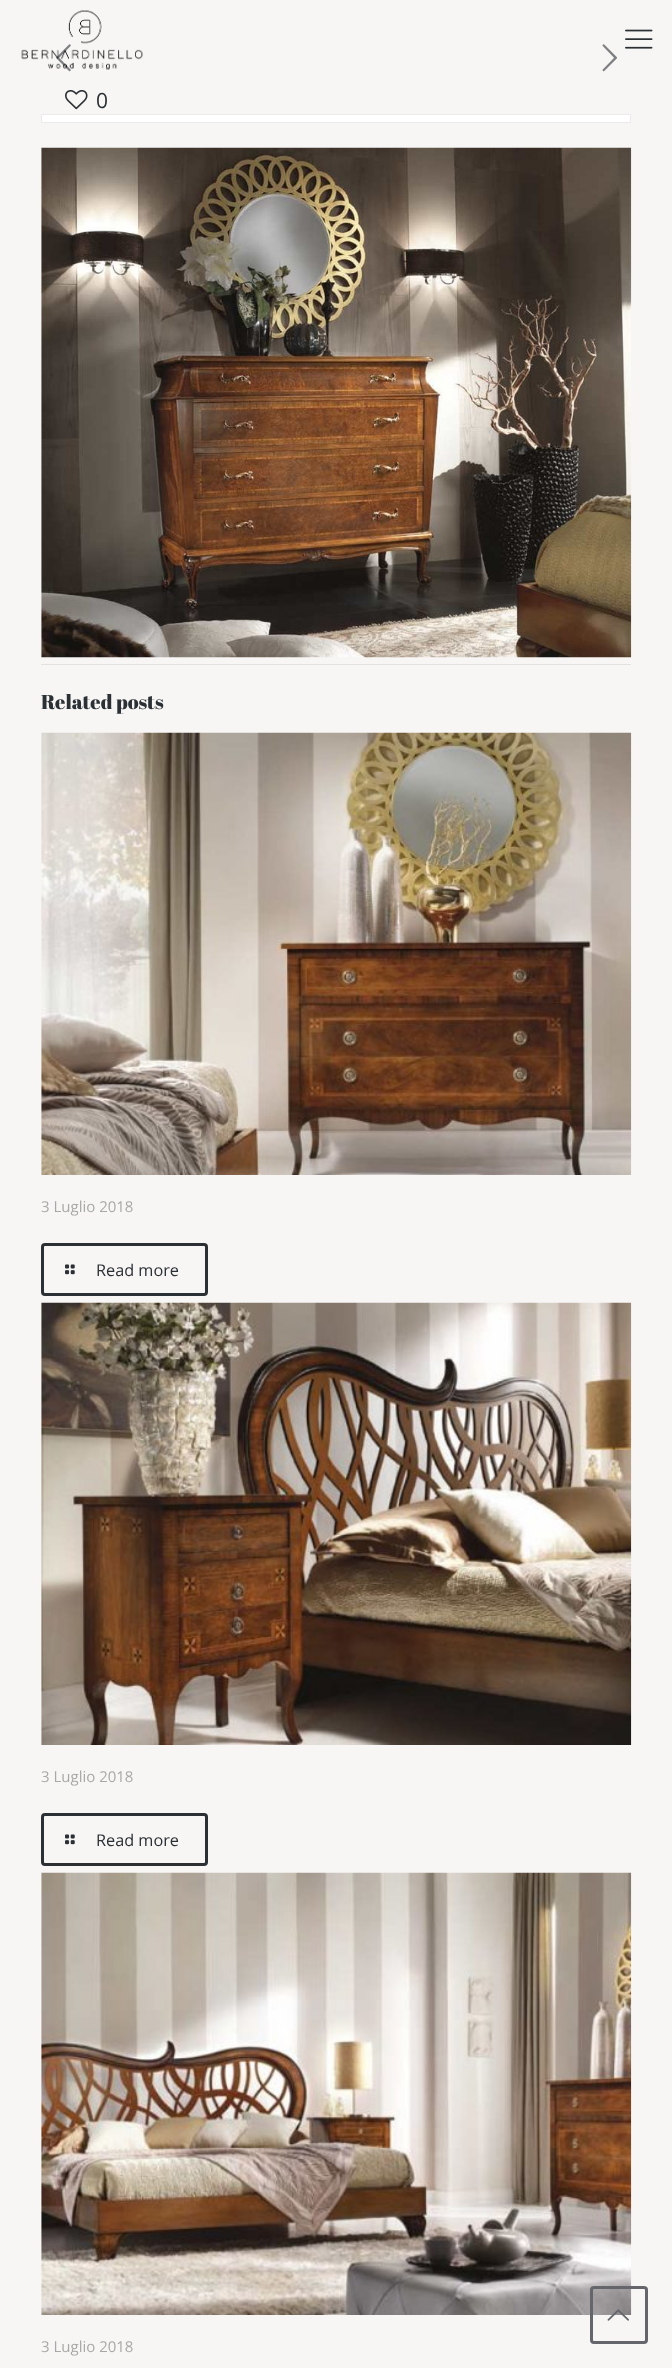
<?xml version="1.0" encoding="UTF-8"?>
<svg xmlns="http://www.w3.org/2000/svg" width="672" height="2368">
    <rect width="100%" height="100%" fill="#F7F6F4"/>
    <image x="56" y="44" width="15" height="28" href="img_03.png"/>
    <image x="21" y="10" width="122" height="60" href="img_01.png"/>
    <image x="625" y="29" width="28" height="20" href="img_02.png"/>
    <image x="602" y="44" width="15" height="28" href="img_04.png"/>
    <image x="65" y="90" width="23" height="20" href="img_05.png"/>
    <text x="96" y="108" font-family="Open Sans" font-size="21" fill="#2B3035">0</text>
    <rect x="41.5" y="114.5" width="589" height="8" fill="#FFFFFF" stroke="#EBEBEB"/>
    <image x="41" y="147" width="591" height="511" href="img_06.png"/>
    <rect x="41" y="664" width="590" height="1" fill="#E3E2E0"/>
    <text x="41" y="709" font-family="Abril Fatface" font-size="20" fill="#2B3035">Related posts</text>
    <image x="41" y="732" width="591" height="443" href="img_07.png"/>
    <text x="41" y="1212" font-family="Open Sans" font-size="15" fill="#A8A8A8">3 Luglio 2018</text>
    <rect x="42.5" y="1244.5" width="164" height="50" rx="2.5" fill="none" stroke="#2B3035" stroke-width="3"/>
    <image x="65" y="1264" width="10" height="11" href="img_08.png"/>
    <text x="96" y="1276" font-family="Open Sans" font-size="16.25" fill="#2B3035">Read more</text>
    <image x="41" y="1302" width="591" height="443" href="img_09.png"/>
    <text x="41" y="1782" font-family="Open Sans" font-size="15" fill="#A8A8A8">3 Luglio 2018</text>
    <rect x="42.5" y="1814.5" width="164" height="50" rx="2.5" fill="none" stroke="#2B3035" stroke-width="3"/>
    <image x="65" y="1834" width="10" height="11" href="img_08.png"/>
    <text x="96" y="1846" font-family="Open Sans" font-size="16.25" fill="#2B3035">Read more</text>
    <image x="41" y="1872" width="591" height="443" href="img_10.png"/>
    <text x="41" y="2352" font-family="Open Sans" font-size="15" fill="#A8A8A8">3 Luglio 2018</text>
    <rect x="591.5" y="2287.5" width="55" height="55" rx="2.5" fill="none" stroke="#65666C" stroke-width="3"/>
    <image x="607" y="2309" width="22" height="12" href="img_11.png"/>
</svg>
